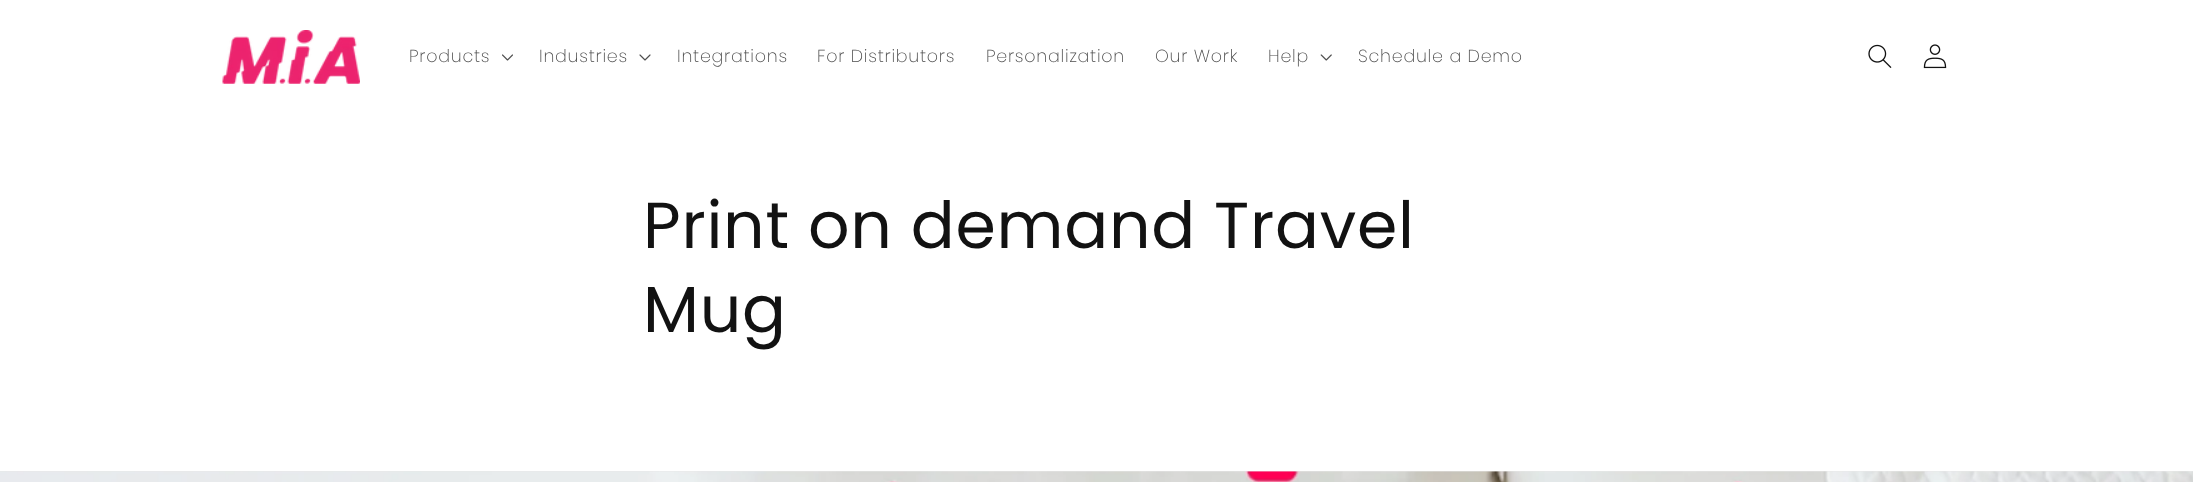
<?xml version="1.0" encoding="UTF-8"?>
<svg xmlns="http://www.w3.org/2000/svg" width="2193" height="482">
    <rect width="100%" height="100%" fill="#FFFFFF"/>
    <image x="222" y="30" width="138" height="54" href="img_01.png"/>
    <text x="409" y="62" font-family="Poppins" font-size="17.5" font-weight="300" letter-spacing="0.75" fill="#4D4D4D">Products</text>
    <image x="502" y="54" width="11" height="7" href="img_02.png"/>
    <text x="539" y="62" font-family="Poppins" font-size="17.5" font-weight="300" letter-spacing="0.75" fill="#4D4D4D">Industries</text>
    <image x="639" y="54" width="12" height="7" href="img_03.png"/>
    <text x="677" y="62" font-family="Poppins" font-size="17.5" font-weight="300" letter-spacing="0.75" fill="#4D4D4D">Integrations</text>
    <text x="817" y="62" font-family="Poppins" font-size="17.5" font-weight="300" letter-spacing="0.75" fill="#4D4D4D">For Distributors</text>
    <text x="986" y="62" font-family="Poppins" font-size="17.5" font-weight="300" letter-spacing="0.75" fill="#4D4D4D">Personalization</text>
    <text x="1155" y="62" font-family="Poppins" font-size="17.5" font-weight="300" letter-spacing="0.75" fill="#4D4D4D">Our Work</text>
    <text x="1268" y="62" font-family="Poppins" font-size="17.5" font-weight="300" letter-spacing="0.75" fill="#4D4D4D">Help</text>
    <image x="1320" y="54" width="12" height="7" href="img_04.png"/>
    <text x="1358" y="62" font-family="Poppins" font-size="17.5" font-weight="300" letter-spacing="0.75" fill="#4D4D4D">Schedule a Demo</text>
    <image x="1868" y="44" width="24" height="24" href="img_05.png"/>
    <image x="1923" y="44" width="24" height="25" href="img_06.png"/>
    <text font-family="Poppins" font-size="65" letter-spacing="0.75" fill="#121212">
        <tspan x="643" y="248">Print on demand Travel</tspan>
        <tspan x="643" y="332">Mug</tspan>
    </text>
    <rect x="0" y="471" width="2193" height="1" fill="#E7E7E7"/>
    <image x="0" y="471" width="2193" height="11" href="img_07.png"/>
</svg>
